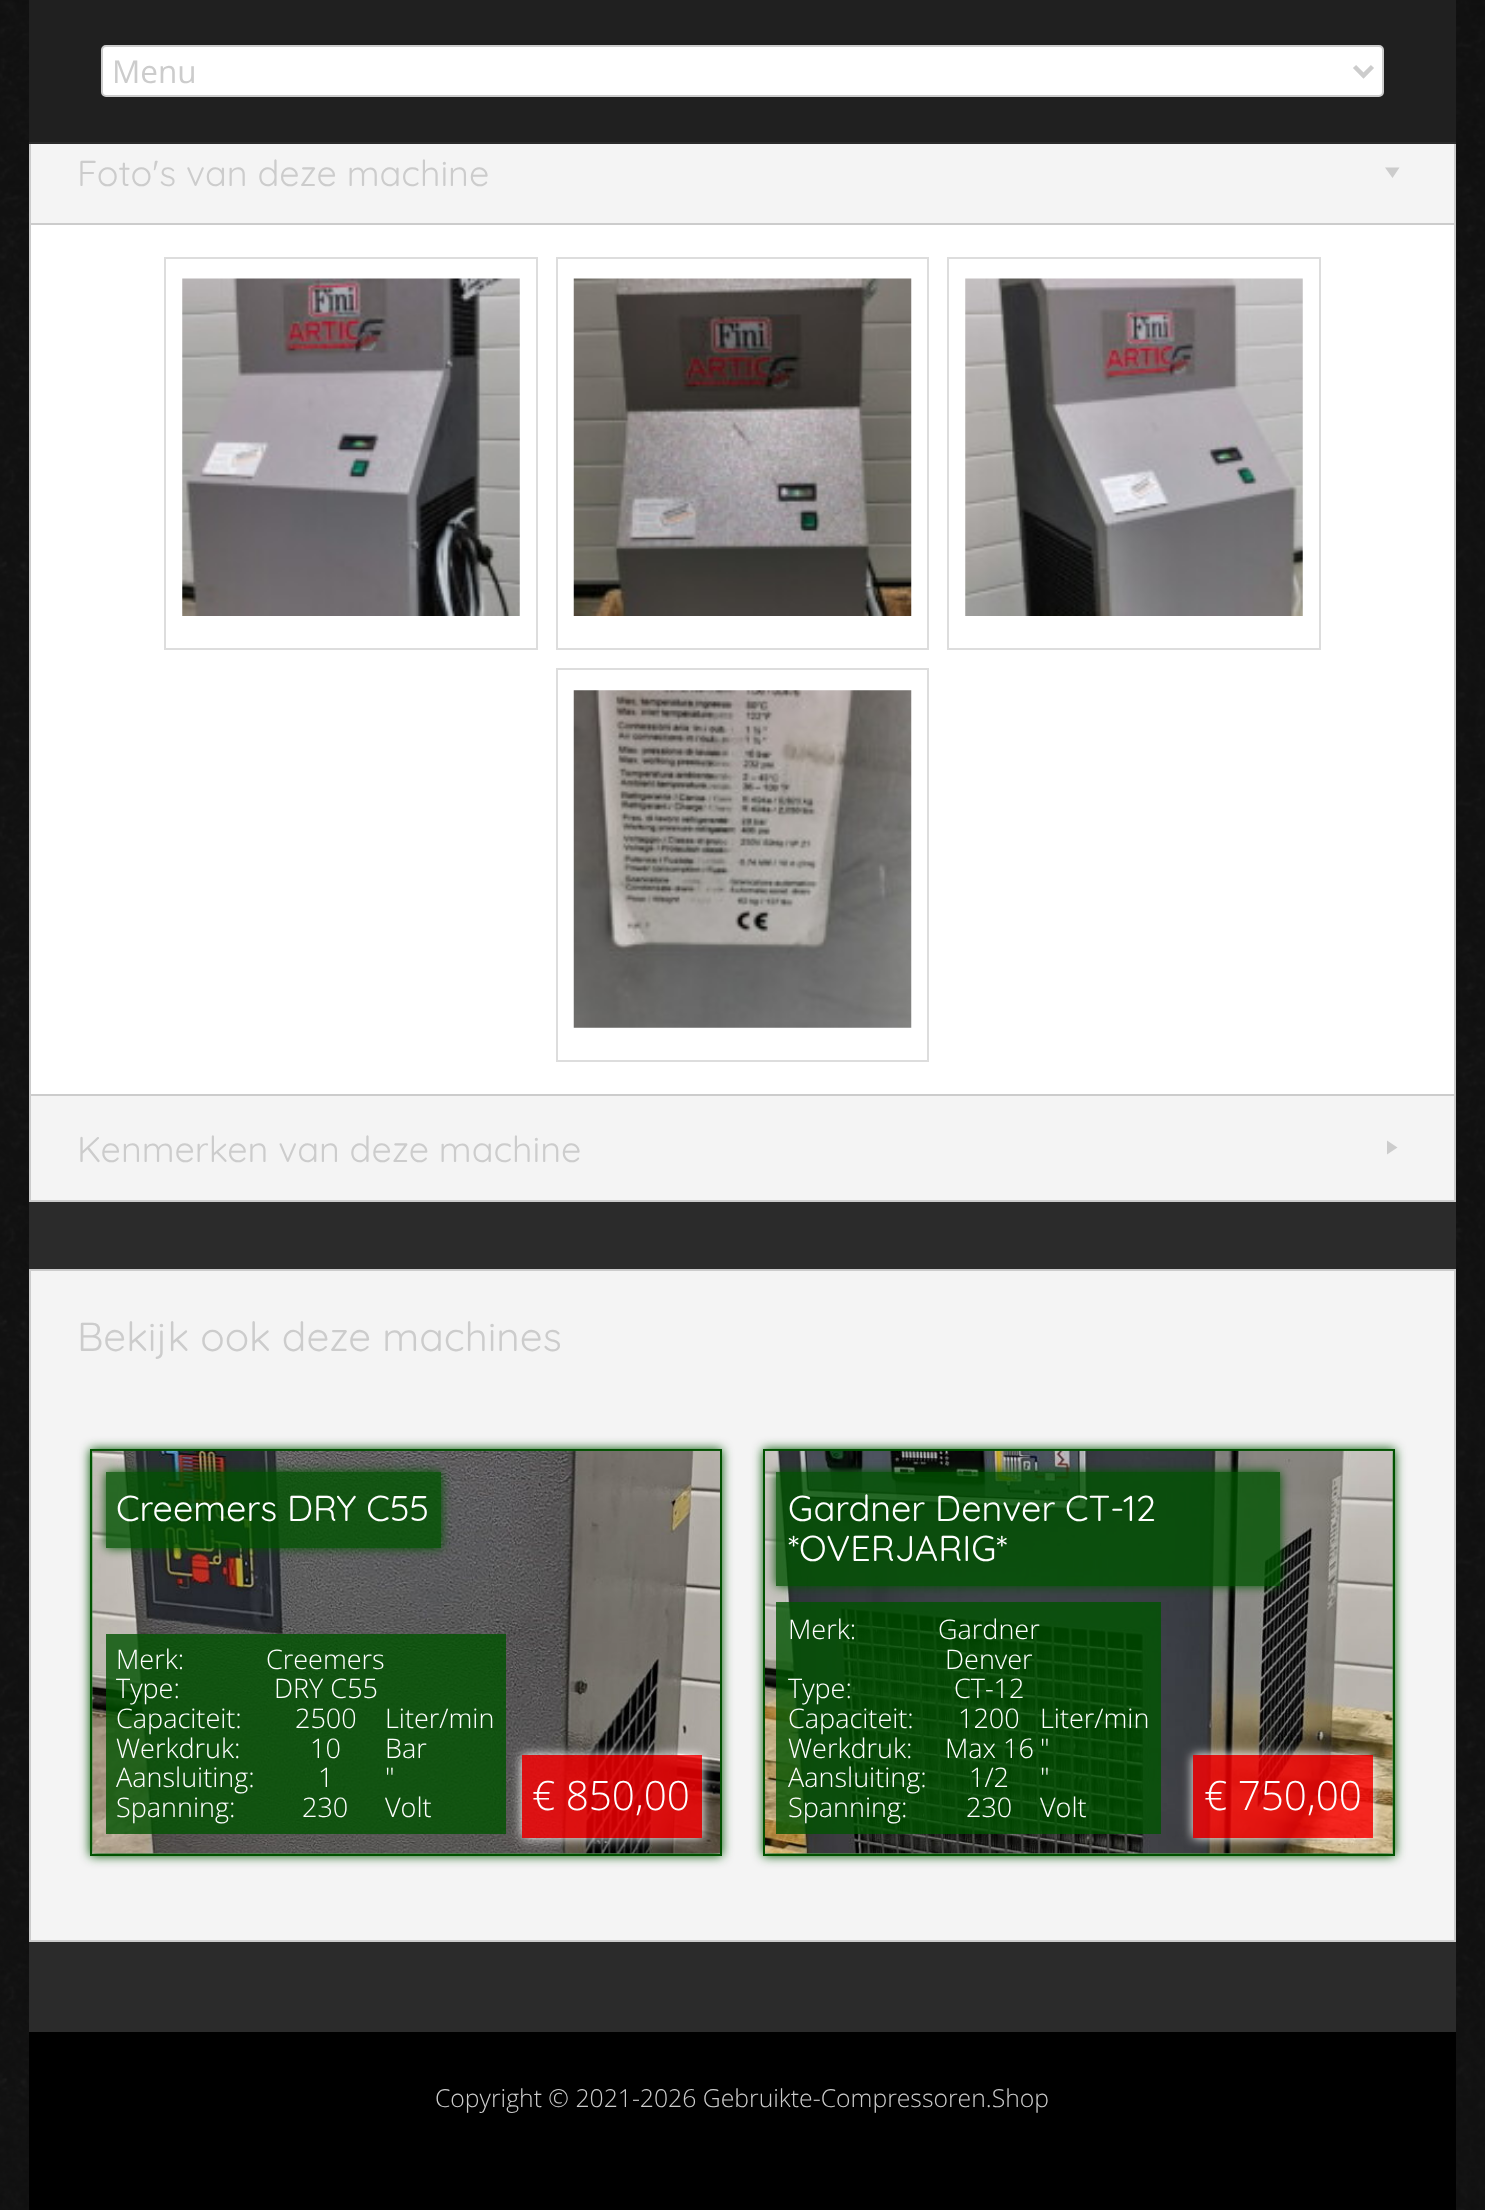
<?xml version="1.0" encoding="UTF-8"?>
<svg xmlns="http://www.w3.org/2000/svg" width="1485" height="2210">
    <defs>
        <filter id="blur1" x="-50%" y="-200%" width="200%" height="500%"><feGaussianBlur stdDeviation="5.5"/></filter>
        <clipPath id="clip1"><path d="M 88 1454 H 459 V 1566 H 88 Z M 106 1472 H 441 V 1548 H 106 Z" clip-rule="evenodd"/></clipPath>
        <clipPath id="clip2"><path d="M 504 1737 H 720 V 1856 H 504 Z M 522 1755 H 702 V 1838 H 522 Z" clip-rule="evenodd"/></clipPath>
        <clipPath id="clip3"><path d="M 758 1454 H 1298 V 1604 H 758 Z M 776 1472 H 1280 V 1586 H 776 Z" clip-rule="evenodd"/></clipPath>
        <clipPath id="clip4"><path d="M 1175 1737 H 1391 V 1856 H 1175 Z M 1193 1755 H 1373 V 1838 H 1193 Z" clip-rule="evenodd"/></clipPath>
    </defs>
    <rect width="100%" height="100%" fill="#FFFFFF"/>
    <image x="0" y="0" width="1485" height="2210" href="img_01.png"/>
    <rect x="29" y="0" width="1427" height="142" fill="#202020"/>
    <rect x="29" y="142" width="1427" height="2" fill="#2B2B2B"/>
    <rect x="102" y="46" width="1281" height="50" rx="4" fill="#FFFFFF" stroke="#CCCCCC" stroke-width="2"/>
    <path d="M 1354.5 66.5 L 1363.5 75.5 L 1372.5 66.5" fill="none" stroke="#CCCCCC" stroke-width="4.5"/>
    <text x="112" y="83" font-family="Open Sans" font-size="31.5" fill="#CCCCCC">Menu</text>
    <rect x="29" y="1202" width="1427" height="830" fill="#2B2B2B"/>
    <rect x="31" y="144" width="1423" height="79" fill="#F4F4F4"/>
    <rect x="1454" y="144" width="2" height="79" fill="#CCCCCC"/>
    <rect x="29" y="144" width="2" height="79" fill="#CCCCCC"/>
    <text x="77" y="186" font-family="Quicksand" font-size="36" fill="#CCCCCC">Foto's van deze machine</text>
    <path d="M 1399.5 167.5 L 1392.5 178 L 1385 167.5 Z" fill="#CCCCCC"/>
    <rect x="31" y="225" width="1423" height="869" fill="#FFFFFF"/>
    <rect x="29" y="223" width="1427" height="2" fill="#CCCCCC"/>
    <rect x="1454" y="223" width="2" height="871" fill="#CCCCCC"/>
    <rect x="29" y="223" width="2" height="871" fill="#CCCCCC"/>
    <rect x="165" y="258" width="372" height="391" fill="none" stroke="#DDDDDD" stroke-width="2"/>
    <image x="182" y="278" width="338" height="338" href="img_02.png"/>
    <rect x="557" y="258" width="371" height="391" fill="none" stroke="#DDDDDD" stroke-width="2"/>
    <image x="573" y="278" width="339" height="338" href="img_03.png"/>
    <rect x="948" y="258" width="372" height="391" fill="none" stroke="#DDDDDD" stroke-width="2"/>
    <image x="965" y="278" width="338" height="338" href="img_04.png"/>
    <rect x="557" y="669" width="371" height="392" fill="none" stroke="#DDDDDD" stroke-width="2"/>
    <image x="573" y="690" width="339" height="338" href="img_05.png"/>
    <rect x="30" y="1095" width="1425" height="106" fill="#F4F4F4" stroke="#CCCCCC" stroke-width="2"/>
    <text x="77" y="1162" font-family="Quicksand" font-size="36" fill="#CCCCCC">Kenmerken van deze machine</text>
    <path d="M 1387 1140.5 L 1397.5 1147.5 L 1387 1154.5 Z" fill="#CCCCCC"/>
    <rect x="30" y="1270" width="1425" height="671" fill="#F4F4F4" stroke="#CCCCCC" stroke-width="2"/>
    <text x="77" y="1351" font-family="Quicksand" font-size="40.5" fill="#CCCCCC">Bekijk ook deze machines</text>
    <rect x="90" y="1449" width="632" height="407" fill="#005200" filter="url(#blur1)"/>
    <rect x="91" y="1450" width="630" height="405" fill="none" stroke="#005200" stroke-width="2"/>
    <image x="92" y="1450" width="628" height="404" href="img_06.png"/>
    <g clip-path="url(#clip1)">
        <rect x="106" y="1472" width="335" height="76" fill="#005200" filter="url(#blur1)"/>
    </g>
    <rect x="106" y="1472" width="335" height="76" fill="#005200" fill-opacity="0.8"/>
    <text x="116" y="1521" font-family="Quicksand" font-size="36" fill="#FFFFFF">Creemers DRY C55</text>
    <rect x="106" y="1634" width="400" height="200" fill="#005200" fill-opacity="0.8"/>
    <text x="116" y="1669" font-family="Open Sans" font-size="27" font-weight="300" fill="#FFFFFF">Merk:</text>
    <text x="266" y="1669" font-family="Open Sans" font-size="27" font-weight="300" fill="#FFFFFF">Creemers</text>
    <text x="116" y="1698" font-family="Open Sans" font-size="27" font-weight="300" fill="#FFFFFF">Type:</text>
    <text x="274" y="1698" font-family="Open Sans" font-size="27" font-weight="300" fill="#FFFFFF">DRY C55</text>
    <text x="116" y="1728" font-family="Open Sans" font-size="27" font-weight="300" fill="#FFFFFF">Capaciteit:</text>
    <text x="295" y="1728" font-family="Open Sans" font-size="27" font-weight="300" fill="#FFFFFF">2500</text>
    <text x="385" y="1728" font-family="Open Sans" font-size="27" font-weight="300" fill="#FFFFFF">Liter/min</text>
    <text x="116" y="1758" font-family="Open Sans" font-size="27" font-weight="300" fill="#FFFFFF">Werkdruk:</text>
    <text x="310" y="1758" font-family="Open Sans" font-size="27" font-weight="300" fill="#FFFFFF">10</text>
    <text x="385" y="1758" font-family="Open Sans" font-size="27" font-weight="300" fill="#FFFFFF">Bar</text>
    <text x="116" y="1787" font-family="Open Sans" font-size="27" font-weight="300" fill="#FFFFFF">Aansluiting:</text>
    <text x="318" y="1787" font-family="Open Sans" font-size="27" font-weight="300" fill="#FFFFFF">1</text>
    <text x="385" y="1787" font-family="Open Sans" font-size="27" font-weight="300" fill="#FFFFFF">"</text>
    <text x="116" y="1817" font-family="Open Sans" font-size="27" font-weight="300" fill="#FFFFFF">Spanning:</text>
    <text x="302" y="1817" font-family="Open Sans" font-size="27" font-weight="300" fill="#FFFFFF">230</text>
    <text x="385" y="1817" font-family="Open Sans" font-size="27" font-weight="300" fill="#FFFFFF">Volt</text>
    <g clip-path="url(#clip2)">
        <rect x="522" y="1755" width="180" height="83" fill="#FFFFFF" filter="url(#blur1)"/>
    </g>
    <rect x="522" y="1755" width="180" height="83" fill="#FD0002" fill-opacity="0.8"/>
    <text x="532" y="1810" font-family="Open Sans" font-size="40.5" font-weight="300" fill="#FFFFFF">€ 850,00</text>
    <rect x="763" y="1449" width="632" height="407" fill="#005200" filter="url(#blur1)"/>
    <rect x="764" y="1450" width="630" height="405" fill="none" stroke="#005200" stroke-width="2"/>
    <image x="765" y="1450" width="628" height="404" href="img_07.png"/>
    <rect x="776" y="1602" width="385" height="232" fill="#005200" fill-opacity="0.8"/>
    <g clip-path="url(#clip3)">
        <rect x="776" y="1472" width="504" height="114" fill="#005200" filter="url(#blur1)"/>
    </g>
    <rect x="776" y="1472" width="504" height="114" fill="#005200" fill-opacity="0.8"/>
    <text font-family="Quicksand" font-size="36" fill="#FFFFFF">
        <tspan x="788" y="1521">Gardner Denver CT-12</tspan>
        <tspan x="788" y="1561">*OVERJARIG*</tspan>
    </text>
    <text x="788" y="1639" font-family="Open Sans" font-size="27" font-weight="300" fill="#FFFFFF">Merk:</text>
    <text x="938" y="1639" font-family="Open Sans" font-size="27" font-weight="300" fill="#FFFFFF">Gardner</text>
    <text x="945" y="1669" font-family="Open Sans" font-size="27" font-weight="300" fill="#FFFFFF">Denver</text>
    <text x="788" y="1698" font-family="Open Sans" font-size="27" font-weight="300" fill="#FFFFFF">Type:</text>
    <text x="954" y="1698" font-family="Open Sans" font-size="27" font-weight="300" fill="#FFFFFF">CT-12</text>
    <text x="788" y="1728" font-family="Open Sans" font-size="27" font-weight="300" fill="#FFFFFF">Capaciteit:</text>
    <text x="958" y="1728" font-family="Open Sans" font-size="27" font-weight="300" fill="#FFFFFF">1200</text>
    <text x="1040" y="1728" font-family="Open Sans" font-size="27" font-weight="300" fill="#FFFFFF">Liter/min</text>
    <text x="788" y="1758" font-family="Open Sans" font-size="27" font-weight="300" fill="#FFFFFF">Werkdruk:</text>
    <text x="945" y="1758" font-family="Open Sans" font-size="27" font-weight="300" fill="#FFFFFF">Max 16</text>
    <text x="1040" y="1758" font-family="Open Sans" font-size="27" font-weight="300" fill="#FFFFFF">"</text>
    <text x="788" y="1787" font-family="Open Sans" font-size="27" font-weight="300" fill="#FFFFFF">Aansluiting:</text>
    <text x="969" y="1787" font-family="Open Sans" font-size="27" font-weight="300" fill="#FFFFFF">1/2</text>
    <text x="1040" y="1787" font-family="Open Sans" font-size="27" font-weight="300" fill="#FFFFFF">"</text>
    <text x="788" y="1817" font-family="Open Sans" font-size="27" font-weight="300" fill="#FFFFFF">Spanning:</text>
    <text x="966" y="1817" font-family="Open Sans" font-size="27" font-weight="300" fill="#FFFFFF">230</text>
    <text x="1040" y="1817" font-family="Open Sans" font-size="27" font-weight="300" fill="#FFFFFF">Volt</text>
    <g clip-path="url(#clip4)">
        <rect x="1193" y="1755" width="180" height="83" fill="#FFFFFF" filter="url(#blur1)"/>
    </g>
    <rect x="1193" y="1755" width="180" height="83" fill="#FD0002" fill-opacity="0.8"/>
    <text x="1204" y="1810" font-family="Open Sans" font-size="40.5" font-weight="300" fill="#FFFFFF">€ 750,00</text>
    <rect x="29" y="2032" width="1427" height="178" fill="#000000"/>
    <text x="435" y="2107" font-family="Open Sans" font-size="24.75" font-weight="300" fill="#CCCCCC">Copyright © 2021-2026 Gebruikte-Compressoren.Shop</text>
</svg>
